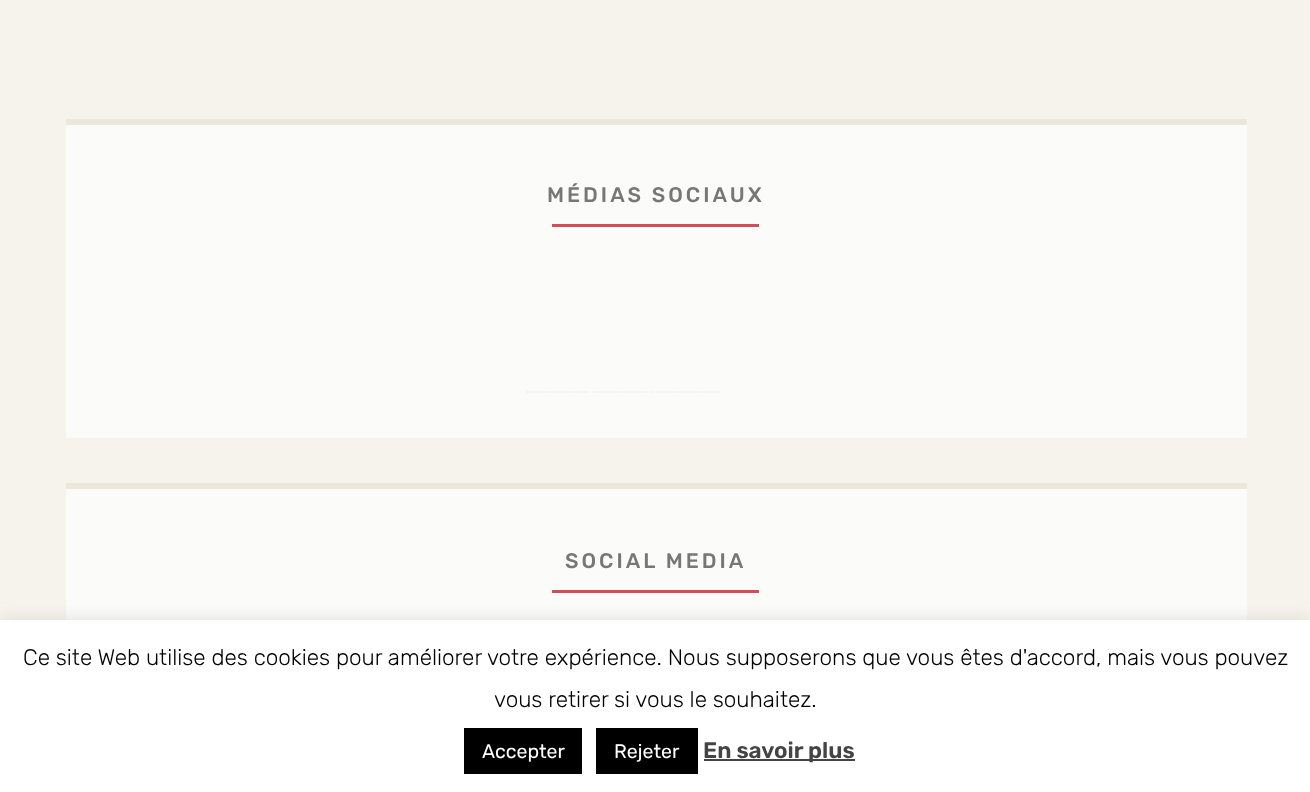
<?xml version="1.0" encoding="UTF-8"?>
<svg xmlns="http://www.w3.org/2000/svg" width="1310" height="792">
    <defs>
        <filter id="blur1" x="-50%" y="-200%" width="200%" height="500%"><feGaussianBlur stdDeviation="7.5"/></filter>
    </defs>
    <rect width="100%" height="100%" fill="#F6F3EC"/>
    <rect x="66" y="125" width="1181" height="313" fill="#FBFBFA"/>
    <rect x="66" y="119" width="1181" height="6" fill="#EDE7DB"/>
    <text x="547" y="202" font-family="Rubik" font-size="21" font-weight="500" letter-spacing="3" fill="#777777">MÉDIAS SOCIAUX</text>
    <rect x="552" y="224" width="207" height="3" fill="#D24D57"/>
    <path d="M 526.5 392 H 588" fill="none" stroke="#EEEEEE" stroke-width="1.5" stroke-dasharray="1.5 1.5"/>
    <path d="M 592.5 392 H 654" fill="none" stroke="#EEEEEE" stroke-width="1.5" stroke-dasharray="1.5 1.5"/>
    <path d="M 657 392 H 718.5" fill="none" stroke="#EEEEEE" stroke-width="1.5" stroke-dasharray="1.5 1.5"/>
    <rect x="66" y="489" width="1181" height="131" fill="#FBFBFA"/>
    <rect x="66" y="483" width="1181" height="6" fill="#EDE7DB"/>
    <text x="565" y="568" font-family="Rubik" font-size="21" font-weight="500" letter-spacing="3" fill="#777777">SOCIAL MEDIA</text>
    <rect x="552" y="590" width="207" height="3" fill="#D24D57"/>
    <rect x="0" y="618" width="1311" height="173" fill="#ACABAB" fill-opacity="0.3" filter="url(#blur1)"/>
    <rect x="0" y="620" width="1310" height="172" fill="#FFFFFF"/>
    <text x="23" y="665" font-family="Rubik" font-size="22.5" font-weight="300" fill="#000000">Ce site Web utilise des cookies pour améliorer votre expérience. Nous supposerons que vous êtes d'accord, mais vous pouvez</text>
    <text x="494" y="707" font-family="Rubik" font-size="22.5" font-weight="300" fill="#000000">vous retirer si vous le souhaitez.</text>
    <rect x="464" y="728" width="118" height="46" fill="#000000"/>
    <text x="482" y="758" font-family="Rubik" font-size="19.5" fill="#FFFFFF">Accepter</text>
    <rect x="596" y="728" width="102" height="46" fill="#000000"/>
    <text x="614" y="758" font-family="Rubik" font-size="19.5" fill="#FFFFFF">Rejeter</text>
    <rect x="704" y="759" width="151" height="2" fill="#444444"/>
    <text x="703" y="758" font-family="Rubik" font-size="22.5" font-weight="600" fill="#444444">En savoir plus</text>
</svg>
